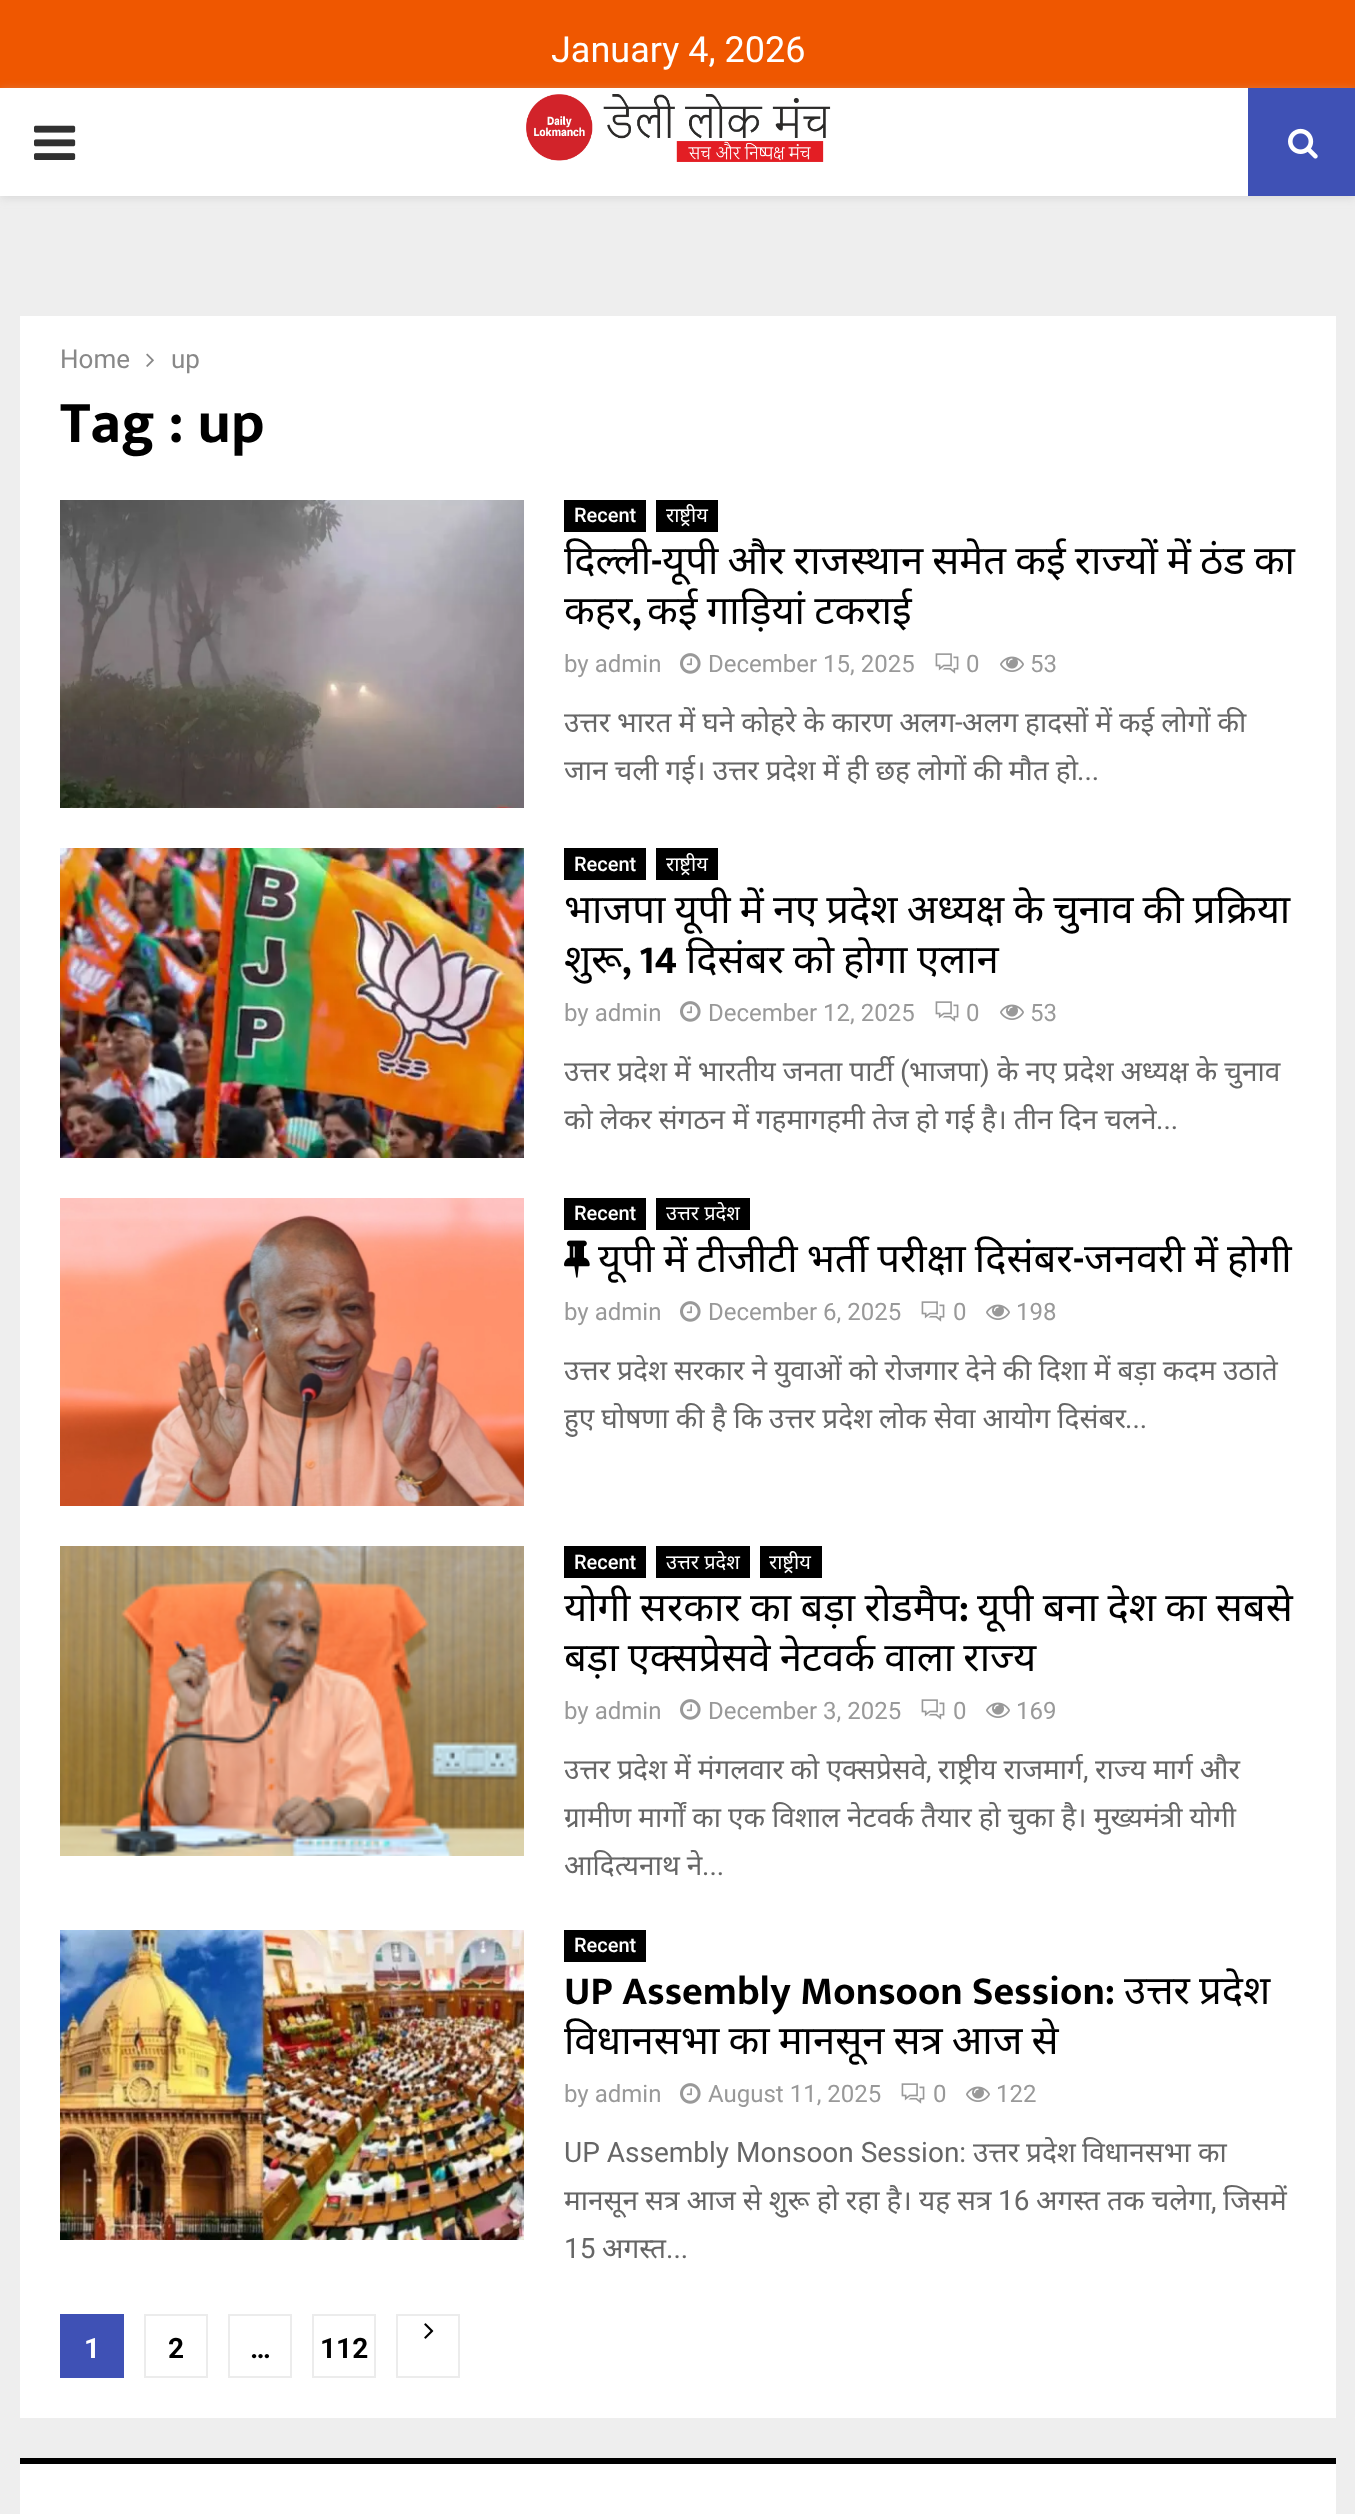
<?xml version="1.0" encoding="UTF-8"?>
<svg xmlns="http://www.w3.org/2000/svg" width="1355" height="2514">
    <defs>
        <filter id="blur1" x="-50%" y="-200%" width="200%" height="500%"><feGaussianBlur stdDeviation="5"/></filter>
    </defs>
    <rect width="100%" height="100%" fill="#EEEEEE"/>
    <rect x="0" y="0" width="1355" height="88" fill="#EF5700"/>
    <text x="551" y="62" font-family="Roboto" font-size="36" fill="#FFFFFF">January 4, 2026</text>
    <rect x="0" y="90" width="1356" height="108" fill="#BEBEBE" fill-opacity="0.46" filter="url(#blur1)"/>
    <rect x="0" y="88" width="1248" height="108" fill="#FFFFFF"/>
    <image x="34" y="125" width="42" height="35" href="img_01.png"/>
    <image x="526" y="94" width="305" height="68" href="img_02.png"/>
    <rect x="1248" y="88" width="107" height="108" fill="#3F51B5"/>
    <image x="1288" y="128" width="30" height="31" href="img_03.png"/>
    <rect x="20" y="316" width="1316" height="2102" fill="#FFFFFF"/>
    <text x="60" y="368" font-family="Roboto" font-size="26" fill="#888888">Home</text>
    <image x="146" y="353" width="8" height="14" href="img_04.png"/>
    <text x="171" y="368" font-family="Roboto" font-size="26" fill="#888888">up</text>
    <text x="60" y="442" font-family="Mukta Vaani" font-size="60" font-weight="700" fill="#000000">Tag : up</text>
    <image x="60" y="500" width="464" height="308" href="img_05.png"/>
    <rect x="564" y="500" width="82" height="32" fill="#000000"/>
    <text x="574" y="522" font-family="Roboto" font-size="20" font-weight="500" fill="#FFFFFF">Recent</text>
    <rect x="656" y="500" width="62" height="32" fill="#000000"/>
    <text x="666" y="522" font-family="Noto Sans" font-size="20" fill="#FFFFFF">राष्ट्रीय</text>
    <text x="564" y="574" font-family="Noto Sans" font-size="40" fill="#000000">दिल्ली</text>
    <text x="651" y="574" font-family="Mukta Vaani" font-size="40" font-weight="700" fill="#000000">-</text>
    <text x="662" y="574" word-spacing="-1.25" font-family="Noto Sans" font-size="40" fill="#000000">यूपी और राजस्थान समेत कई राज्यों में ठंड का</text>
    <text x="564" y="624" font-family="Noto Sans" font-size="40" fill="#000000">कहर</text>
    <text x="632" y="624" font-family="Mukta Vaani" font-size="40" font-weight="700" fill="#000000">,</text>
    <text x="647" y="624" word-spacing="-1" font-family="Noto Sans" font-size="40" fill="#000000">कई गाड़ियां टकराई</text>
    <text x="564" y="672" font-family="Roboto" font-size="24" fill="#999999">by admin</text>
    <image x="680" y="653" width="21" height="21" href="img_06.png"/>
    <text x="708" y="672" font-family="Roboto" font-size="24" fill="#999999">December 15, 2025</text>
    <image x="935" y="653" width="24" height="21" href="img_07.png"/>
    <text x="966" y="672" font-family="Roboto" font-size="24" fill="#999999">0</text>
    <image x="1000" y="656" width="24" height="16" href="img_08.png"/>
    <text x="1030" y="672" font-family="Roboto" font-size="24" fill="#999999">53</text>
    <text x="564" y="732" word-spacing="-0.3" font-family="Noto Sans" font-size="28" fill="#666666">उत्तर भारत में घने कोहरे के कारण अलग</text>
    <text x="955" y="732" font-family="Roboto" font-size="28" fill="#666666">-</text>
    <text x="962" y="732" word-spacing="-0.3" font-family="Noto Sans" font-size="28" fill="#666666">अलग हादसों में कई लोगों की</text>
    <text x="564" y="780" word-spacing="-0.3" font-family="Noto Sans" font-size="28" fill="#666666">जान चली गई। उत्तर प्रदेश में ही छह लोगों की मौत हो</text>
    <text x="1077" y="780" font-family="Roboto" font-size="28" fill="#666666">...</text>
    <image x="60" y="848" width="464" height="310" href="img_09.png"/>
    <rect x="564" y="848" width="82" height="32" fill="#000000"/>
    <text x="574" y="871" font-family="Roboto" font-size="20" font-weight="500" fill="#FFFFFF">Recent</text>
    <rect x="656" y="848" width="62" height="32" fill="#000000"/>
    <text x="666" y="871" font-family="Noto Sans" font-size="20" fill="#FFFFFF">राष्ट्रीय</text>
    <text font-family="Noto Sans" font-size="40" fill="#000000">
        <tspan x="564" y="923" word-spacing="-1.25">भाजपा यूपी में नए प्रदेश अध्यक्ष के चुनाव की प्रक्रिया</tspan>
        <tspan x="564" y="973">शुरू</tspan>
    </text>
    <text x="622" y="973" font-family="Mukta Vaani" font-size="40" font-weight="700" fill="#000000">, 14</text>
    <text x="686" y="973" font-family="Noto Sans" font-size="40" fill="#000000">दिसंबर</text>
    <text x="793" y="973" font-family="Noto Sans" font-size="40" fill="#000000">को</text>
    <text x="843" y="973" font-family="Noto Sans" font-size="40" fill="#000000">होगा</text>
    <text x="917" y="973" font-family="Noto Sans" font-size="40" fill="#000000">एलान</text>
    <text x="564" y="1021" font-family="Roboto" font-size="24" fill="#999999">by admin</text>
    <image x="680" y="1001" width="21" height="21" href="img_06.png"/>
    <text x="708" y="1021" font-family="Roboto" font-size="24" fill="#999999">December 12, 2025</text>
    <image x="935" y="1001" width="24" height="21" href="img_07.png"/>
    <text x="966" y="1021" font-family="Roboto" font-size="24" fill="#999999">0</text>
    <image x="1000" y="1004" width="24" height="16" href="img_08.png"/>
    <text x="1030" y="1021" font-family="Roboto" font-size="24" fill="#999999">53</text>
    <text x="564" y="1081" word-spacing="-0.25" font-family="Noto Sans" font-size="28" fill="#666666">उत्तर प्रदेश में भारतीय जनता पार्टी</text>
    <text x="900" y="1081" font-family="Roboto" font-size="28" fill="#666666">(</text>
    <text x="980" y="1081" font-family="Roboto" font-size="28" fill="#666666">)</text>
    <text x="997" y="1081" word-spacing="-0.25" font-family="Noto Sans" font-size="28" fill="#666666">के नए प्रदेश अध्यक्ष के चुनाव</text>
    <text x="909" y="1081" font-family="Noto Sans" font-size="28" fill="#666666">भाजपा</text>
    <text x="564" y="1129" word-spacing="-0.3" font-family="Noto Sans" font-size="28" fill="#666666">को लेकर संगठन में गहमागहमी तेज हो गई है। तीन दिन चलने</text>
    <text x="1156" y="1129" font-family="Roboto" font-size="28" fill="#666666">...</text>
    <image x="60" y="1198" width="464" height="308" href="img_10.png"/>
    <rect x="564" y="1198" width="82" height="32" fill="#000000"/>
    <text x="574" y="1220" font-family="Roboto" font-size="20" font-weight="500" fill="#FFFFFF">Recent</text>
    <rect x="656" y="1198" width="94" height="32" fill="#000000"/>
    <text x="666" y="1220" font-family="Noto Sans" font-size="20" fill="#FFFFFF">उत्तर प्रदेश</text>
    <image x="564" y="1240" width="26" height="38" href="img_11.png"/>
    <text x="598" y="1272" word-spacing="-1.25" font-family="Noto Sans" font-size="40" fill="#000000">यूपी में टीजीटी भर्ती परीक्षा दिसंबर</text>
    <text x="1073" y="1272" font-family="Mukta Vaani" font-size="40" font-weight="700" fill="#000000">-</text>
    <text x="1084" y="1272" word-spacing="-1.25" font-family="Noto Sans" font-size="40" fill="#000000">जनवरी में होगी</text>
    <text x="564" y="1320" font-family="Roboto" font-size="24" fill="#999999">by admin</text>
    <image x="680" y="1301" width="21" height="21" href="img_06.png"/>
    <text x="708" y="1320" font-family="Roboto" font-size="24" fill="#999999">December 6, 2025</text>
    <image x="921" y="1301" width="24" height="21" href="img_07.png"/>
    <text x="953" y="1320" font-family="Roboto" font-size="24" fill="#999999">0</text>
    <image x="986" y="1304" width="24" height="16" href="img_08.png"/>
    <text x="1016" y="1320" font-family="Roboto" font-size="24" fill="#999999">198</text>
    <text font-family="Noto Sans" font-size="28" fill="#666666">
        <tspan x="564" y="1380" word-spacing="-0.3">उत्तर प्रदेश सरकार ने युवाओं को रोजगार देने की दिशा में बड़ा कदम उठाते</tspan>
        <tspan x="564" y="1428" word-spacing="-0.3">हुए घोषणा की है कि उत्तर प्रदेश लोक सेवा आयोग दिसंबर</tspan>
    </text>
    <text x="1125" y="1428" font-family="Roboto" font-size="28" fill="#666666">...</text>
    <image x="60" y="1546" width="464" height="310" href="img_12.png"/>
    <rect x="564" y="1546" width="82" height="32" fill="#000000"/>
    <text x="574" y="1569" font-family="Roboto" font-size="20" font-weight="500" fill="#FFFFFF">Recent</text>
    <rect x="656" y="1546" width="94" height="32" fill="#000000"/>
    <text x="666" y="1569" font-family="Noto Sans" font-size="20" fill="#FFFFFF">उत्तर प्रदेश</text>
    <rect x="760" y="1546" width="62" height="32" fill="#000000"/>
    <text x="769" y="1569" font-family="Noto Sans" font-size="20" fill="#FFFFFF">राष्ट्रीय</text>
    <text x="564" y="1621" word-spacing="-1" font-family="Noto Sans" font-size="40" fill="#000000">योगी सरकार का बड़ा रोडमैप</text>
    <text x="959" y="1621" font-family="Mukta Vaani" font-size="40" font-weight="700" fill="#000000">:</text>
    <text x="977" y="1621" word-spacing="-1" font-family="Noto Sans" font-size="40" fill="#000000">यूपी बना देश का सबसे</text>
    <text x="564" y="1671" word-spacing="-1.25" font-family="Noto Sans" font-size="40" fill="#000000">बड़ा एक्सप्रेसवे नेटवर्क वाला राज्य</text>
    <text x="564" y="1719" font-family="Roboto" font-size="24" fill="#999999">by admin</text>
    <image x="680" y="1699" width="21" height="21" href="img_06.png"/>
    <text x="708" y="1719" font-family="Roboto" font-size="24" fill="#999999">December 3, 2025</text>
    <image x="921" y="1699" width="24" height="21" href="img_07.png"/>
    <text x="953" y="1719" font-family="Roboto" font-size="24" fill="#999999">0</text>
    <image x="986" y="1702" width="24" height="16" href="img_08.png"/>
    <text x="1016" y="1719" font-family="Roboto" font-size="24" fill="#999999">169</text>
    <text x="564" y="1779" word-spacing="-0.25" font-family="Noto Sans" font-size="28" fill="#666666">उत्तर प्रदेश में मंगलवार को एक्सप्रेसवे</text>
    <text x="926" y="1779" font-family="Roboto" font-size="28" fill="#666666">,</text>
    <text x="938" y="1779" word-spacing="-0.25" font-family="Noto Sans" font-size="28" fill="#666666">राष्ट्रीय राजमार्ग</text>
    <text x="1083" y="1779" font-family="Roboto" font-size="28" fill="#666666">,</text>
    <text x="1095" y="1779" word-spacing="-0.25" font-family="Noto Sans" font-size="28" fill="#666666">राज्य मार्ग और</text>
    <text font-family="Noto Sans" font-size="28" fill="#666666">
        <tspan x="564" y="1827" word-spacing="-0.3">ग्रामीण मार्गों का एक विशाल नेटवर्क तैयार हो चुका है। मुख्यमंत्री योगी</tspan>
        <tspan x="564" y="1875" word-spacing="-0.3">आदित्यनाथ ने</tspan>
    </text>
    <text x="702" y="1875" font-family="Roboto" font-size="28" fill="#666666">...</text>
    <image x="60" y="1930" width="464" height="310" href="img_13.png"/>
    <rect x="564" y="1930" width="82" height="32" fill="#000000"/>
    <text x="574" y="1952" font-family="Roboto" font-size="20" font-weight="500" fill="#FFFFFF">Recent</text>
    <text x="564" y="2004" font-family="Mukta Vaani" font-size="40" font-weight="700" fill="#000000">UP Assembly Monsoon Session:</text>
    <text x="1124" y="2004" font-family="Noto Sans" font-size="40" fill="#000000">उत्तर</text>
    <text x="1199" y="2004" font-family="Noto Sans" font-size="40" fill="#000000">प्रदेश</text>
    <text x="564" y="2054" word-spacing="-1.25" font-family="Noto Sans" font-size="40" fill="#000000">विधानसभा का मानसून सत्र आज से</text>
    <text x="564" y="2102" font-family="Roboto" font-size="24" fill="#999999">by admin</text>
    <image x="680" y="2083" width="21" height="21" href="img_06.png"/>
    <text x="708" y="2102" font-family="Roboto" font-size="24" fill="#999999">August 11, 2025</text>
    <image x="901" y="2083" width="24" height="21" href="img_07.png"/>
    <text x="933" y="2102" font-family="Roboto" font-size="24" fill="#999999">0</text>
    <image x="966" y="2086" width="24" height="16" href="img_08.png"/>
    <text x="996" y="2102" font-family="Roboto" font-size="24" fill="#999999">122</text>
    <text x="564" y="2162" font-family="Roboto" font-size="28" fill="#666666">UP Assembly Monsoon Session:</text>
    <text x="973" y="2162" font-family="Noto Sans" font-size="28" fill="#666666">उत्तर</text>
    <text x="1026" y="2162" font-family="Noto Sans" font-size="28" fill="#666666">प्रदेश</text>
    <text x="1082" y="2162" font-family="Noto Sans" font-size="28" fill="#666666">विधानसभा</text>
    <text x="1198" y="2162" font-family="Noto Sans" font-size="28" fill="#666666">का</text>
    <text x="564" y="2210" word-spacing="-0.25" font-family="Noto Sans" font-size="28" fill="#666666">मानसून सत्र आज से शुरू हो रहा है। यह सत्र</text>
    <text x="998" y="2210" font-family="Roboto" font-size="28" fill="#666666">16</text>
    <text x="1036" y="2210" word-spacing="-0.25" font-family="Noto Sans" font-size="28" fill="#666666">अगस्त तक चलेगा</text>
    <text x="1211" y="2210" font-family="Roboto" font-size="28" fill="#666666">,</text>
    <text x="1223" y="2210" font-family="Noto Sans" font-size="28" fill="#666666">जिसमें</text>
    <text x="564" y="2258" font-family="Roboto" font-size="28" fill="#666666">15</text>
    <text x="602" y="2258" font-family="Noto Sans" font-size="28" fill="#666666">अगस्त</text>
    <text x="666" y="2258" font-family="Roboto" font-size="28" fill="#666666">...</text>
    <rect x="60" y="2314" width="64" height="64" fill="#3F51B5"/>
    <text x="84" y="2358" font-family="Roboto" font-size="28" font-weight="700" fill="#FFFFFF">1</text>
    <rect x="145" y="2315" width="62" height="62" fill="none" stroke="#ECECEC" stroke-width="2"/>
    <text x="168" y="2358" font-family="Roboto" font-size="28" font-weight="700" fill="#000000">2</text>
    <rect x="229" y="2315" width="62" height="62" fill="none" stroke="#ECECEC" stroke-width="2"/>
    <text x="250" y="2358" font-family="Roboto" font-size="28" font-weight="700" fill="#000000">…</text>
    <rect x="313" y="2315" width="62" height="62" fill="none" stroke="#ECECEC" stroke-width="2"/>
    <text x="320" y="2358" font-family="Roboto" font-size="28" font-weight="700" fill="#000000">112</text>
    <rect x="397" y="2315" width="62" height="62" fill="none" stroke="#ECECEC" stroke-width="2"/>
    <image x="424" y="2323" width="10" height="16" href="img_14.png"/>
    <rect x="20" y="2464" width="1316" height="50" fill="#FFFFFF"/>
    <rect x="20" y="2458" width="1316" height="6" fill="#000000"/>
</svg>
